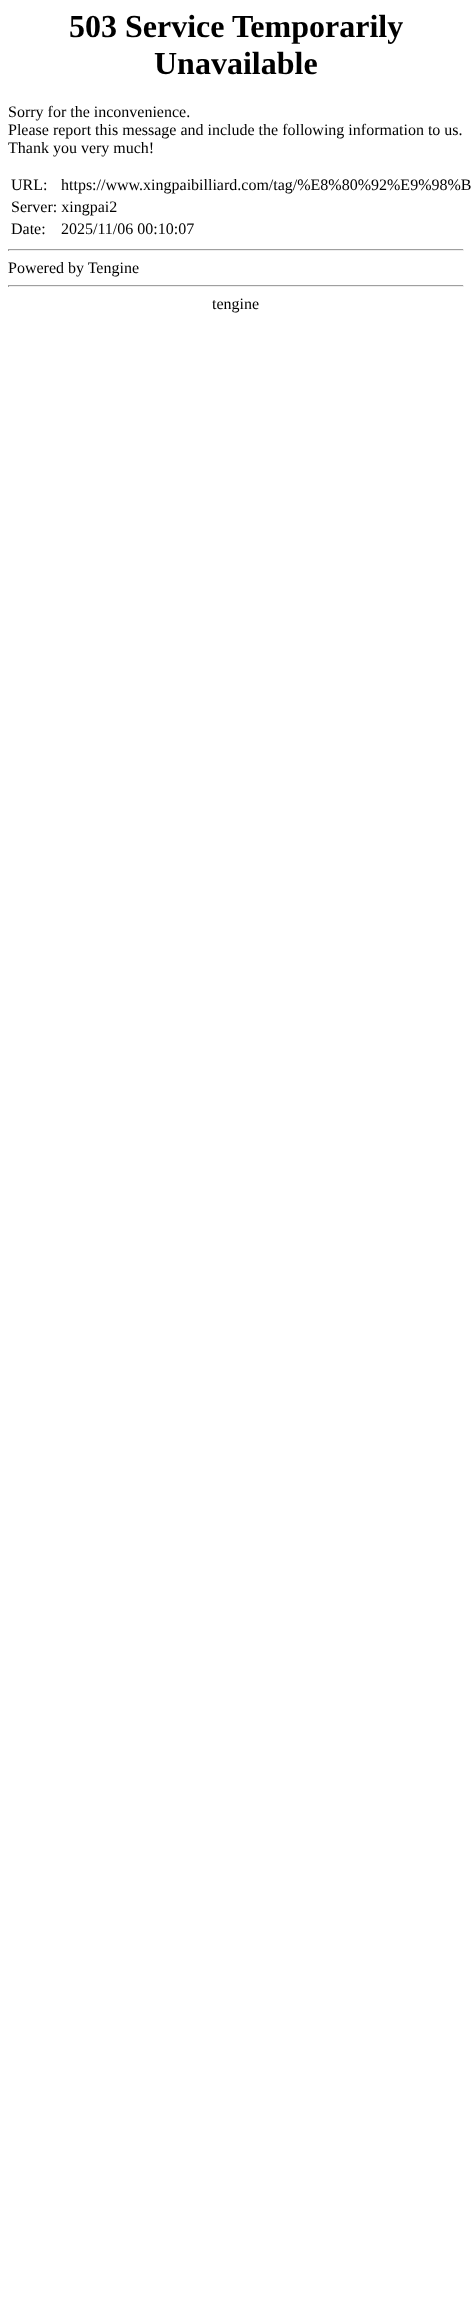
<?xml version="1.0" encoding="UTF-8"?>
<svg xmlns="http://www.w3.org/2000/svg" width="472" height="2306">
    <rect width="100%" height="100%" fill="#FFFFFF"/>
    <text x="69" y="37" font-family="Liberation Serif" font-size="32" font-weight="700" fill="#000000">503 Service Temporarily</text>
    <text x="154" y="74" font-family="Liberation Serif" font-size="32" font-weight="700" fill="#000000">Unavailable</text>
    <text font-family="Liberation Serif" font-size="16" fill="#000000">
        <tspan x="8" y="117">Sorry for the inconvenience.</tspan>
        <tspan x="8" y="135">Please report this message and include the following information to us.</tspan>
        <tspan x="8" y="153">Thank you very much!</tspan>
    </text>
    <text x="11" y="190" font-family="Liberation Serif" font-size="16" fill="#000000">URL:</text>
    <text x="61" y="190" font-family="Liberation Serif" font-size="16" fill="#000000">https://www.xingpaibilliard.com/tag/%E8%80%92%E9%98%B</text>
    <text font-family="Liberation Serif" font-size="16" fill="#000000">
        <tspan x="11" y="212">Server: xingpai2</tspan>
        <tspan x="11" y="234">Date:</tspan>
    </text>
    <text x="61" y="234" font-family="Liberation Serif" font-size="16" fill="#000000">2025/11/06 00:10:07</text>
    <rect x="8" y="249" width="456" height="1" fill="#9F9F9F"/>
    <rect x="463" y="249" width="1" height="2" fill="#EEEEEE"/>
    <rect x="8" y="250" width="456" height="1" fill="#EEEEEE"/>
    <rect x="8" y="249" width="1" height="2" fill="#9F9F9F"/>
    <text x="8" y="273" font-family="Liberation Serif" font-size="16" fill="#000000">Powered by Tengine</text>
    <rect x="8" y="285" width="456" height="1" fill="#9F9F9F"/>
    <rect x="463" y="285" width="1" height="2" fill="#EEEEEE"/>
    <rect x="8" y="286" width="456" height="1" fill="#EEEEEE"/>
    <rect x="8" y="285" width="1" height="2" fill="#9F9F9F"/>
    <text x="212" y="309" font-family="Liberation Serif" font-size="16" fill="#000000">tengine</text>
</svg>
